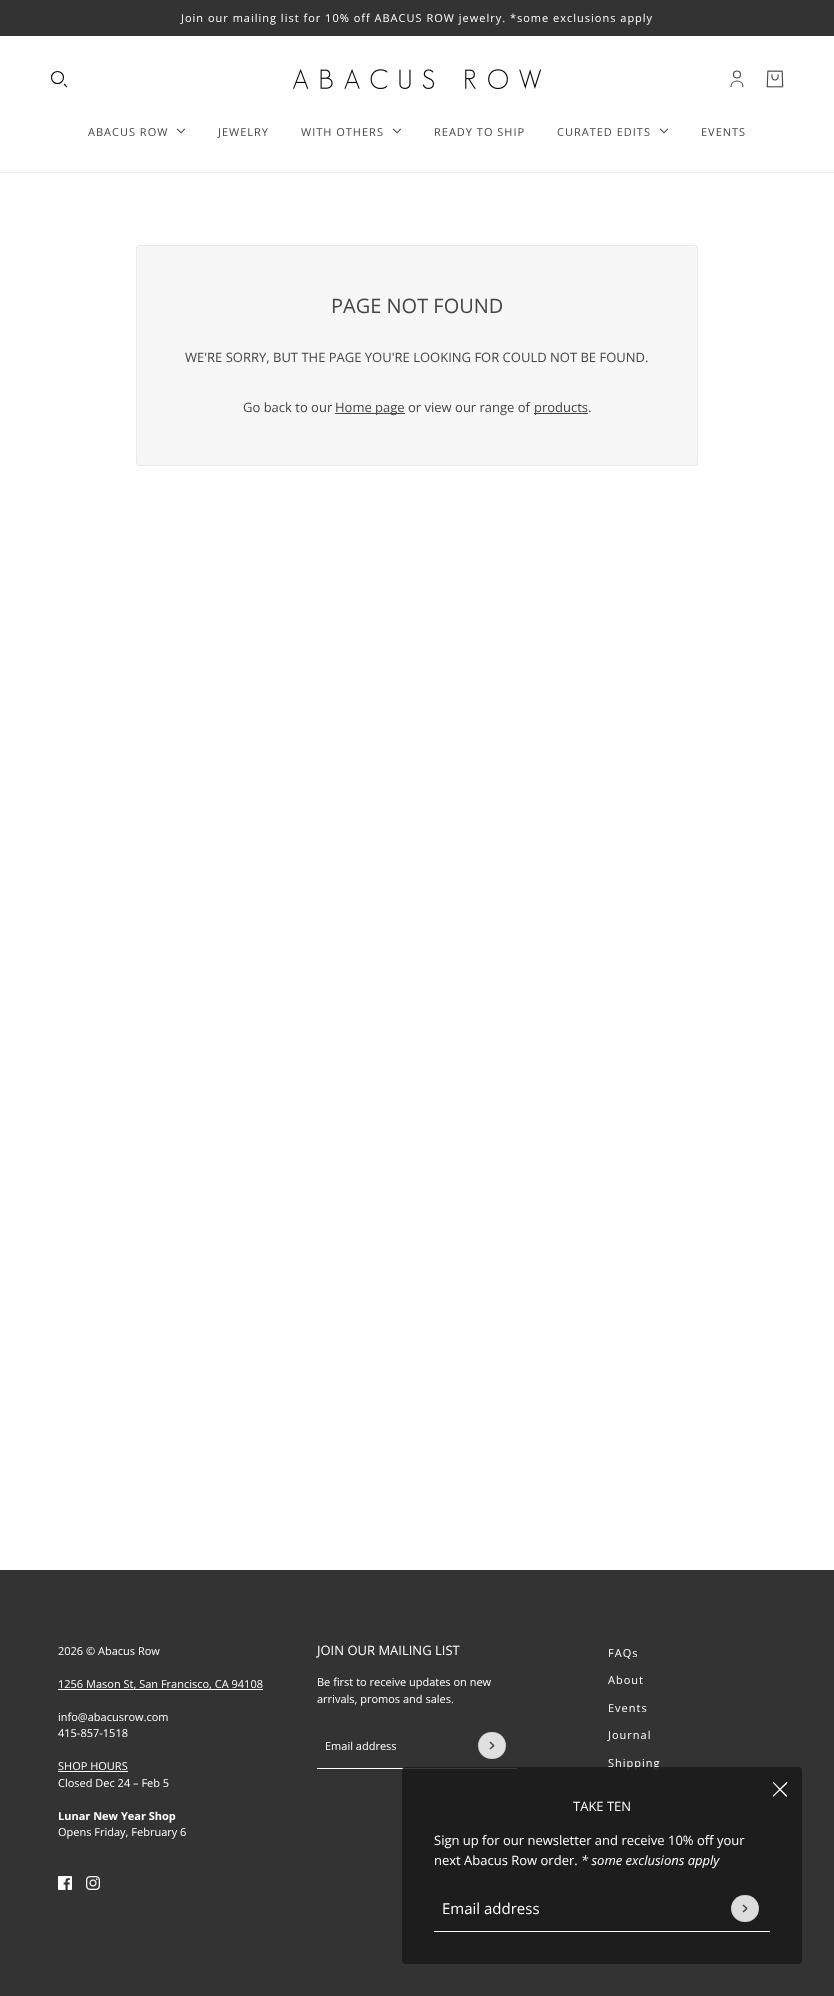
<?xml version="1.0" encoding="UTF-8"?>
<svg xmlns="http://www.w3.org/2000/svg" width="834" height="1996">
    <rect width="100%" height="100%" fill="#FFFFFF"/>
    <rect x="0" y="0" width="834" height="36" fill="#333333"/>
    <text x="181" y="22" font-family="Open Sans" font-size="11" letter-spacing="1" fill="#FFFFFF">Join our mailing list for 10% off ABACUS ROW jewelry. *some exclusions apply</text>
    <circle cx="57.5" cy="77.5" r="6" fill="none" stroke="#000000" stroke-width="1.1"/>
    <path d="M 64 84 L 67 87" fill="none" stroke="#000000" stroke-width="1.1"/>
    <image x="293" y="69" width="248" height="20" href="img_01.png"/>
    <circle cx="737" cy="74.5" r="3.5" fill="none" stroke="#444444" stroke-width="1.1"/>
    <path d="M 731 87 C 731 79 743 79 743 87" fill="none" stroke="#444444" stroke-width="1.1"/>
    <image x="766" y="70" width="18" height="18" href="img_02.png"/>
    <text x="88" y="136" font-family="Open Sans" font-size="11" letter-spacing="1" fill="#444444">ABACUS ROW</text>
    <image x="176" y="128" width="10" height="6" href="img_03.png"/>
    <text x="218" y="136" font-family="Open Sans" font-size="11" letter-spacing="1" fill="#444444">JEWELRY</text>
    <text x="301" y="136" font-family="Open Sans" font-size="11" letter-spacing="1" fill="#444444">WITH OTHERS</text>
    <image x="392" y="128" width="10" height="6" href="img_03.png"/>
    <text x="434" y="136" font-family="Open Sans" font-size="11" letter-spacing="1" fill="#444444">READY TO SHIP</text>
    <text x="557" y="136" font-family="Open Sans" font-size="11" letter-spacing="1" fill="#444444">CURATED EDITS</text>
    <image x="659" y="128" width="10" height="6" href="img_03.png"/>
    <text x="701" y="136" font-family="Open Sans" font-size="11" letter-spacing="1" fill="#444444">EVENTS</text>
    <rect x="0" y="172" width="834" height="1" fill="#ECECEC"/>
    <rect x="136.5" y="245.5" width="561" height="220" rx="2.5" fill="#F7F7F7" stroke="#EAEAEA"/>
    <text x="331" y="313" font-family="Open Sans" font-size="20" fill="#444444">PAGE NOT FOUND</text>
    <text x="185" y="362" font-family="Open Sans" font-size="13" fill="#444444">WE'RE SORRY, BUT THE PAGE YOU'RE LOOKING FOR COULD NOT BE FOUND.</text>
    <text x="243" y="412" font-family="Open Sans" font-size="13" fill="#444444">Go back to our</text>
    <rect x="335" y="413" width="70" height="1" fill="#444444"/>
    <text x="335" y="412" font-family="Open Sans" font-size="13" fill="#444444">Home page or view our range of</text>
    <rect x="534" y="413" width="54" height="1" fill="#444444"/>
    <text x="534" y="412" font-family="Open Sans" font-size="13" fill="#444444">products.</text>
    <rect x="0" y="1571" width="834" height="425" fill="#333333"/>
    <rect x="0" y="1570" width="834" height="1" fill="#353535"/>
    <text x="58" y="1655" font-family="Open Sans" font-size="11" fill="#FFFFFF">2026 © Abacus Row</text>
    <rect x="58" y="1689" width="205" height="1" fill="#FFFFFF"/>
    <text x="58" y="1688" font-family="Open Sans" font-size="11" fill="#FFFFFF">1256 Mason St, San Francisco, CA 94108</text>
    <text font-family="Open Sans" font-size="11" fill="#FFFFFF">
        <tspan x="58" y="1721">info@abacusrow.com</tspan>
        <tspan x="58" y="1737">415-857-1518</tspan>
    </text>
    <text x="58" y="1770" font-family="Open Sans" font-size="11" fill="#FFFFFF">SHOP HOURS</text>
    <rect x="58" y="1771" width="70" height="1" fill="#FFFFFF"/>
    <text x="58" y="1787" font-family="Open Sans" font-size="11" fill="#FFFFFF">Closed Dec 24 – Feb 5</text>
    <text x="58" y="1820" font-family="Open Sans" font-size="11" font-weight="700" fill="#FFFFFF">Lunar New Year Shop</text>
    <text x="58" y="1836" font-family="Open Sans" font-size="11" fill="#FFFFFF">Opens Friday, February 6</text>
    <image x="58" y="1876" width="14" height="14" href="img_04.png"/>
    <image x="86" y="1876" width="14" height="14" href="img_05.png"/>
    <text x="317" y="1655" font-family="Open Sans" font-size="13" fill="#FFFFFF">JOIN OUR MAILING LIST</text>
    <text font-family="Open Sans" font-size="11" fill="#FFFFFF">
        <tspan x="317" y="1686">Be first to receive updates on new</tspan>
        <tspan x="317" y="1703">arrivals, promos and sales.</tspan>
    </text>
    <rect x="317" y="1768" width="200" height="1" fill="#FFFFFF"/>
    <text x="325" y="1750" font-family="Open Sans" font-size="11" fill="#FFFFFF">Email address</text>
    <rect x="478" y="1732" width="28" height="27" rx="13.5" fill="#E0E0E0"/>
    <rect x="478.4" y="1732.4" width="27.2" height="26.2" rx="13.1" fill="none" stroke="#414141" stroke-opacity="0.1" stroke-width="0.8"/>
    <path d="M 489.5 1748.5 L 493.5 1745 L 494.5 1746 L 490.5 1749.5 Z" fill="#414141"/>
    <path d="M 490.5 1741.5 L 494.5 1745.5 L 493.5 1746.5 L 489.5 1742.5 Z" fill="#414141"/>
    <text x="608" y="1657" font-family="Open Sans" font-size="11" letter-spacing="1" fill="#FFFFFF">FAQs</text>
    <text x="608" y="1684" font-family="Open Sans" font-size="11" letter-spacing="1" fill="#FFFFFF">About</text>
    <text x="608" y="1712" font-family="Open Sans" font-size="11" letter-spacing="1" fill="#FFFFFF">Events</text>
    <text x="608" y="1739" font-family="Open Sans" font-size="11" letter-spacing="1" fill="#FFFFFF">Journal</text>
    <text x="608" y="1767" font-family="Open Sans" font-size="11" letter-spacing="1" fill="#FFFFFF">Shipping</text>
    <rect x="402" y="1767" width="400" height="197" rx="4" fill="#1A1A1A" fill-opacity="0.85"/>
    <path d="M 774 1782.5 L 787 1795.5 V 1796.5 C 786.5 1797.5 785 1795.5 784 1794.5 L 773 1783 C 772.5 1782.5 773.5 1782 774 1782.5 Z" fill="#FFFFFF"/>
    <path d="M 773 1795.5 L 786.5 1782 H 787 C 788 1783 786 1784.5 785 1785.5 L 773.5 1796.5 C 773 1797 772.5 1796 773 1795.5 Z" fill="#FFFFFF"/>
    <text x="573" y="1811" font-family="Open Sans" font-size="13" fill="#FFFFFF">TAKE TEN</text>
    <text font-family="Open Sans" font-size="13" fill="#FFFFFF">
        <tspan x="434" y="1845">Sign up for our newsletter and receive 10% off your</tspan>
        <tspan x="434" y="1865">next Abacus Row order.</tspan>
    </text>
    <text x="581" y="1865" font-family="Open Sans" font-size="13" font-style="italic" fill="#FFFFFF">* some exclusions apply</text>
    <rect x="434" y="1931" width="336" height="1" fill="#FFFFFF"/>
    <text x="442" y="1914" font-family="Open Sans" font-size="15" fill="#FFFFFF">Email address</text>
    <rect x="731" y="1895" width="28" height="27" rx="13.5" fill="#DDDDDD"/>
    <rect x="731.4" y="1895.4" width="27.2" height="26.2" rx="13.1" fill="none" stroke="#3E3E3E" stroke-opacity="0.1" stroke-width="0.8"/>
    <path d="M 742.5 1911.5 L 746.5 1908 L 747.5 1909 L 743.5 1912.5 Z" fill="#3E3E3E"/>
    <path d="M 743.5 1904.5 L 747.5 1908 L 746.5 1909 L 742.5 1905.5 Z" fill="#3E3E3E"/>
</svg>
